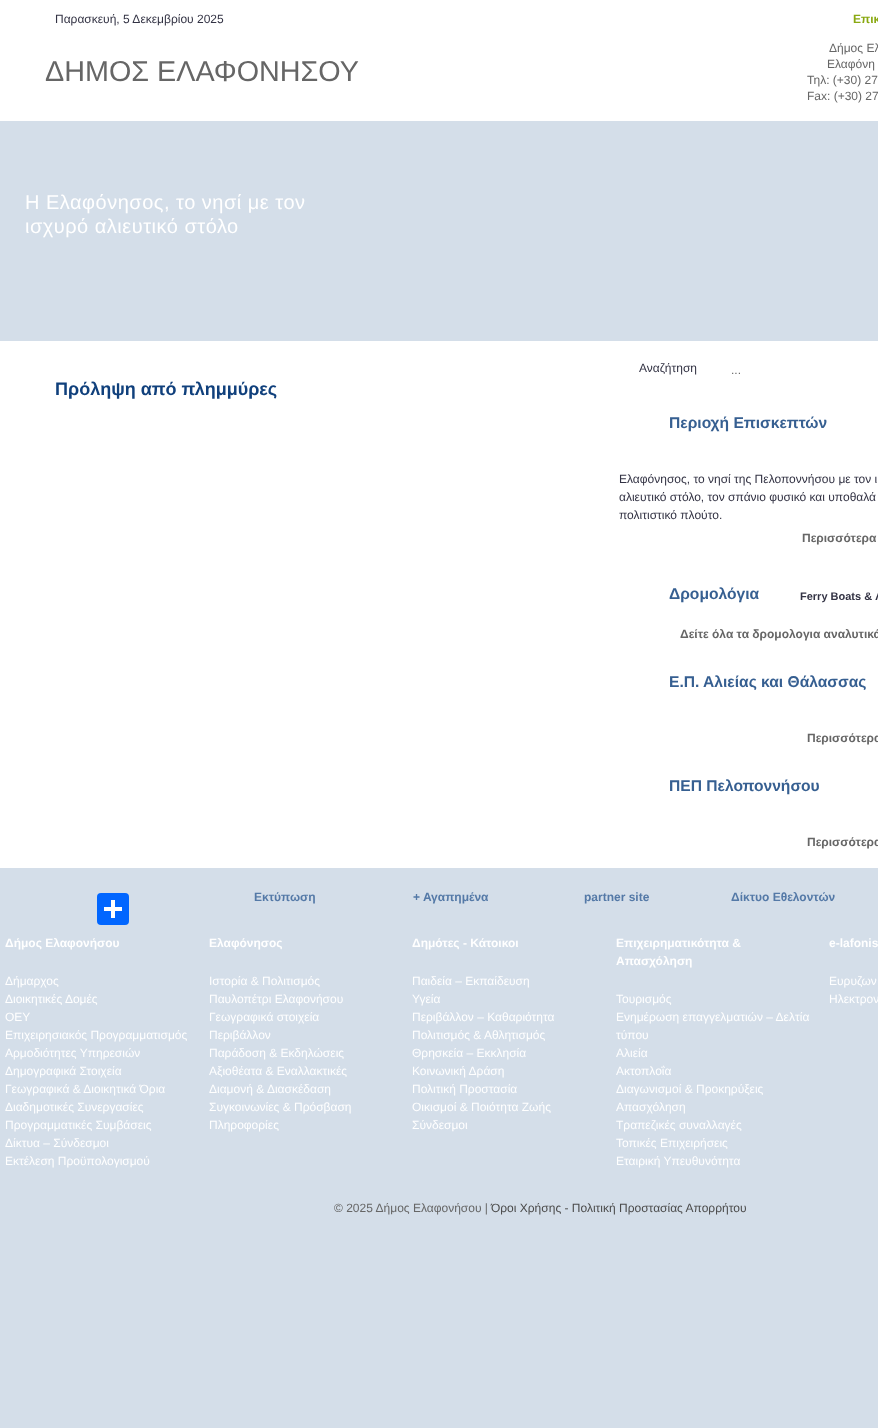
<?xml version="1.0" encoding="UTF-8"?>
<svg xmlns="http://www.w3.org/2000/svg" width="878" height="1428">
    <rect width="100%" height="100%" fill="#D4DEE9"/>
    <rect x="0" y="0" width="878" height="121" fill="#FFFFFF"/>
    <text x="55" y="23" font-family="Liberation Sans" font-size="12" fill="#333344">Παρασκευή, 5 Δεκεμβρίου 2025</text>
    <text x="853" y="23" font-family="Liberation Sans" font-size="12" font-weight="700" fill="#8AA912">Επικ</text>
    <text x="45" y="81" font-family="Liberation Sans" font-size="28.75" fill="#666666">ΔΗΜΟΣ ΕΛΑΦΟΝΗΣΟΥ</text>
    <text x="829" y="52" font-family="Liberation Sans" font-size="12" fill="#666666">Δήμος Ελ</text>
    <text x="827" y="68" font-family="Liberation Sans" font-size="12" fill="#666666">Ελαφόνη</text>
    <text font-family="Liberation Sans" font-size="12" fill="#666666">
        <tspan x="807" y="84">Τηλ: (+30) 27</tspan>
        <tspan x="807" y="100">Fax: (+30) 27</tspan>
    </text>
    <text font-family="Liberation Sans" font-size="20" letter-spacing="0.5" fill="#FFFFFF">
        <tspan x="25" y="209">Η Ελαφόνησος, το νησί με τον</tspan>
        <tspan x="25" y="233">ισχυρό αλιευτικό στόλο</tspan>
    </text>
    <rect x="0" y="341" width="878" height="527" fill="#FFFFFF"/>
    <text x="55" y="395" font-family="Liberation Sans" font-size="18" font-weight="700" fill="#10407C">Πρόληψη από πλημμύρες</text>
    <text x="639" y="372" font-family="Liberation Sans" font-size="12" fill="#333344">Αναζήτηση</text>
    <text x="731" y="374" font-family="Liberation Sans" font-size="12" fill="#666666">...</text>
    <text x="669" y="428" font-family="Liberation Sans" font-size="15.6" font-weight="700" fill="#365F91">Περιοχή Επισκεπτών</text>
    <text font-family="Liberation Sans" font-size="12" fill="#333344">
        <tspan x="619" y="483">Ελαφόνησος, το νησί της Πελοποννήσου με τον ι</tspan>
        <tspan x="619" y="501">αλιευτικό στόλο, τον σπάνιο φυσικό και υποθαλά</tspan>
        <tspan x="619" y="519">πολιτιστικό πλούτο.</tspan>
    </text>
    <text x="802" y="542" font-family="Liberation Sans" font-size="12" font-weight="700" fill="#666666">Περισσότερα</text>
    <text x="669" y="599" font-family="Liberation Sans" font-size="15.6" font-weight="700" fill="#365F91">Δρομολόγια</text>
    <text x="800" y="600" font-family="Liberation Sans" font-size="11" font-weight="700" fill="#333344">Ferry Boats &amp; Λ</text>
    <text x="680" y="638" font-family="Liberation Sans" font-size="12" font-weight="700" fill="#666666">Δείτε όλα τα δρομολογια αναλυτικά</text>
    <text x="669" y="687" font-family="Liberation Sans" font-size="15.6" font-weight="700" fill="#365F91">Ε.Π. Αλιείας και Θάλασσας</text>
    <text x="807" y="742" font-family="Liberation Sans" font-size="12" font-weight="700" fill="#666666">Περισσότερα</text>
    <text x="669" y="791" font-family="Liberation Sans" font-size="15.6" font-weight="700" fill="#365F91">ΠΕΠ Πελοποννήσου</text>
    <text x="807" y="846" font-family="Liberation Sans" font-size="12" font-weight="700" fill="#666666">Περισσότερα</text>
    <rect x="97" y="893" width="32" height="32" rx="4" fill="#0166FF"/>
    <rect x="111" y="900" width="4" height="18" fill="#FFFFFF"/>
    <rect x="104" y="907" width="18" height="4" fill="#FFFFFF"/>
    <text x="254" y="901" font-family="Liberation Sans" font-size="12" font-weight="700" fill="#5479A7">Εκτύπωση</text>
    <text x="413" y="901" font-family="Liberation Sans" font-size="12" font-weight="700" fill="#5479A7">+ Αγαπημένα</text>
    <text x="584" y="901" font-family="Liberation Sans" font-size="12" font-weight="700" fill="#5479A7">partner site</text>
    <text x="731" y="901" font-family="Liberation Sans" font-size="12" font-weight="700" fill="#5479A7">Δίκτυο Εθελοντών</text>
    <text x="5" y="947" font-family="Liberation Sans" font-size="12" font-weight="700" fill="#FFFFFF">Δήμος Ελαφονήσου</text>
    <text font-family="Liberation Sans" font-size="12" fill="#FFFFFF">
        <tspan x="5" y="985">Δήμαρχος</tspan>
        <tspan x="5" y="1003">Διοικητικές Δομές</tspan>
        <tspan x="5" y="1021">ΟEΥ</tspan>
        <tspan x="5" y="1039">Επιχειρησιακός Προγραμματισμός</tspan>
        <tspan x="5" y="1057">Αρμοδιότητες Υπηρεσιών</tspan>
        <tspan x="5" y="1075">Δημογραφικά Στοιχεία</tspan>
        <tspan x="5" y="1093">Γεωγραφικά &amp; Διοικητικά Όρια</tspan>
        <tspan x="5" y="1111">Διαδημοτικές Συνεργασίες</tspan>
        <tspan x="5" y="1129">Προγραμματικές Συμβάσεις</tspan>
        <tspan x="5" y="1147">Δίκτυα – Σύνδεσμοι</tspan>
        <tspan x="5" y="1165">Εκτέλεση Προϋπολογισμού</tspan>
    </text>
    <text x="209" y="947" font-family="Liberation Sans" font-size="12" font-weight="700" fill="#FFFFFF">Ελαφόνησος</text>
    <text font-family="Liberation Sans" font-size="12" fill="#FFFFFF">
        <tspan x="209" y="985">Ιστορία &amp; Πολιτισμός</tspan>
        <tspan x="209" y="1003">Παυλοπέτρι Ελαφονήσου</tspan>
        <tspan x="209" y="1021">Γεωγραφικά στοιχεία</tspan>
        <tspan x="209" y="1039">Περιβάλλον</tspan>
        <tspan x="209" y="1057">Παράδοση &amp; Εκδηλώσεις</tspan>
        <tspan x="209" y="1075">Αξιοθέατα &amp; Eναλλακτικές</tspan>
        <tspan x="209" y="1093">Διαμονή &amp; Διασκέδαση</tspan>
        <tspan x="209" y="1111">Συγκοινωνίες &amp; Πρόσβαση</tspan>
        <tspan x="209" y="1129">Πληροφορίες</tspan>
    </text>
    <text x="412" y="947" font-family="Liberation Sans" font-size="12" font-weight="700" fill="#FFFFFF">Δημότες - Κάτοικοι</text>
    <text font-family="Liberation Sans" font-size="12" fill="#FFFFFF">
        <tspan x="412" y="985">Παιδεία – Εκπαίδευση</tspan>
        <tspan x="412" y="1003">Υγεία</tspan>
        <tspan x="412" y="1021">Περιβάλλον – Καθαριότητα</tspan>
        <tspan x="412" y="1039">Πολιτισμός &amp; Αθλητισμός</tspan>
        <tspan x="412" y="1057">Θρησκεία – Εκκλησία</tspan>
        <tspan x="412" y="1075">Κοινωνική Δράση</tspan>
        <tspan x="412" y="1093">Πολιτική Προστασία</tspan>
        <tspan x="412" y="1111">Οικισμοί &amp; Ποιότητα Ζωής</tspan>
        <tspan x="412" y="1129">Σύνδεσμοι</tspan>
    </text>
    <text font-family="Liberation Sans" font-size="12" font-weight="700" fill="#FFFFFF">
        <tspan x="616" y="947">Επιχειρηματικότητα &amp;</tspan>
        <tspan x="616" y="965">Απασχόληση</tspan>
    </text>
    <text font-family="Liberation Sans" font-size="12" fill="#FFFFFF">
        <tspan x="616" y="1003">Τουρισμός</tspan>
        <tspan x="616" y="1021">Ενημέρωση επαγγελματιών – Δελτία</tspan>
        <tspan x="616" y="1039">τύπου</tspan>
        <tspan x="616" y="1057">Αλιεία</tspan>
        <tspan x="616" y="1075">Ακτοπλοΐα</tspan>
        <tspan x="616" y="1093">Διαγωνισμοί &amp; Προκηρύξεις</tspan>
        <tspan x="616" y="1111">Απασχόληση</tspan>
        <tspan x="616" y="1129">Τραπεζικές συναλλαγές</tspan>
        <tspan x="616" y="1147">Τοπικές Επιχειρήσεις</tspan>
        <tspan x="616" y="1165">Εταιρική Υπευθυνότητα</tspan>
    </text>
    <text x="829" y="947" font-family="Liberation Sans" font-size="12" font-weight="700" fill="#FFFFFF">e-lafonis</text>
    <text font-family="Liberation Sans" font-size="12" fill="#FFFFFF">
        <tspan x="829" y="985">Ευρυζων</tspan>
        <tspan x="829" y="1003">Ηλεκτρον</tspan>
    </text>
    <text x="334" y="1212" font-family="Liberation Sans" font-size="12" fill="#666666">© 2025 Δήμος Ελαφονήσου |</text>
    <text x="491" y="1212" font-family="Liberation Sans" font-size="12" fill="#4B4B4B">Όροι Χρήσης - Πολιτική Προστασίας Απορρήτου</text>
</svg>
